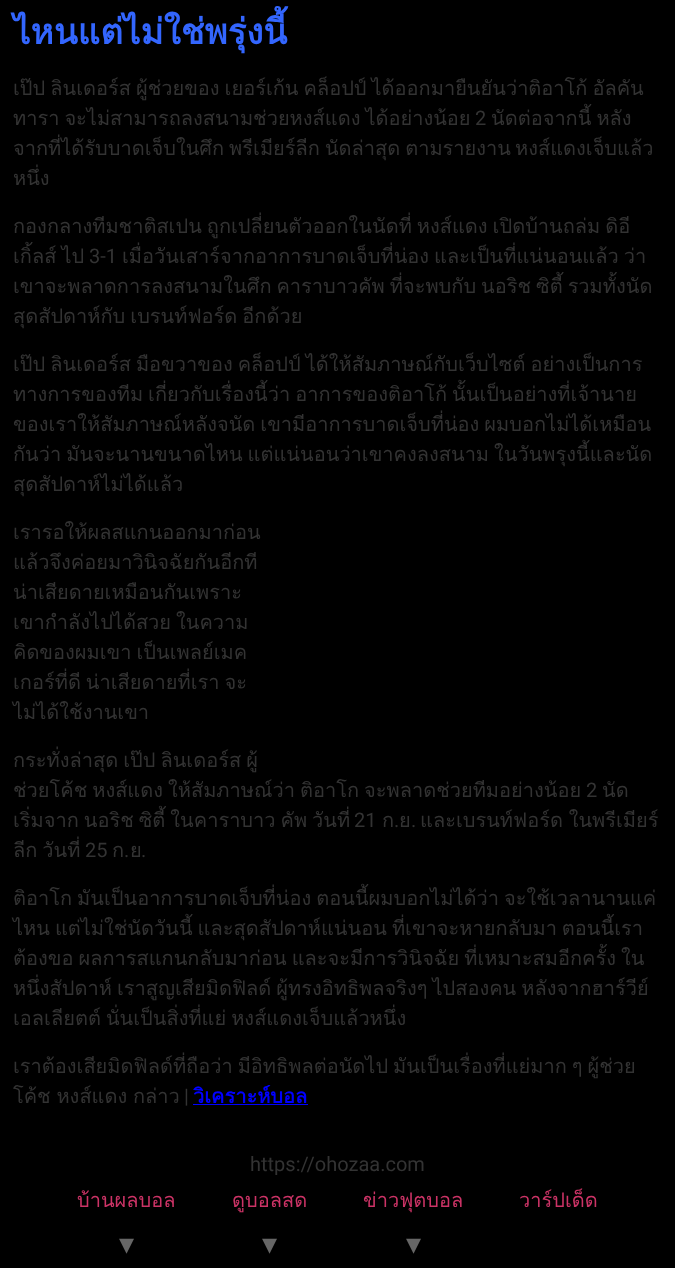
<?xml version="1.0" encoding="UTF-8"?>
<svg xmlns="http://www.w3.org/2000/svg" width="675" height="1268">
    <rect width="100%" height="100%" fill="#000000"/>
    <text x="13" y="44" font-family="Loma" font-size="35" font-weight="700" fill="#3366FF">ไหนแต่ไม่ใช่พรุ่งนี้</text>
    <text font-family="Loma" font-size="20" fill="#333333">
        <tspan x="13" y="95" word-spacing="-1.75">เป๊ป ลินเดอร์ส ผู้ช่วยของ เยอร์เก้น คล็อปป์ ได้ออกมายืนยันว่าติอาโก้ อัลคัน</tspan>
        <tspan x="13" y="125" word-spacing="-1.75">ทารา จะไม่สามารถลงสนามช่วยหงส์แดง ได้อย่างน้อย</tspan>
    </text>
    <text x="475" y="125" font-family="Roboto" font-size="20" fill="#333333">2</text>
    <text x="491" y="125" word-spacing="-1.75" font-family="Loma" font-size="20" fill="#333333">นัดต่อจากนี้ หลัง</text>
    <text x="13" y="155" word-spacing="-1.75" font-family="Loma" font-size="20" fill="#333333">จากที่ได้รับบาดเจ็บในศึก พรีเมียร์ลีก นัดล่าสุด ตามรายงาน</text>
    <text x="515" y="155" font-family="Loma" font-size="20" fill="#333333">หงส์แดงเจ็บแล้ว</text>
    <text x="13" y="185" font-family="Loma" font-size="20" fill="#333333">หนึ่ง</text>
    <text font-family="Loma" font-size="20" fill="#333333">
        <tspan x="13" y="233" word-spacing="-1.75">กองกลางทีมชาติสเปน ถูกเปลี่ยนตัวออกในนัดที่ หงส์แดง เปิดบ้านถล่ม ดิอี</tspan>
        <tspan x="13" y="263" word-spacing="-1.75">เกิ้ลส์ ไป</tspan>
    </text>
    <text x="89" y="263" font-family="Roboto" font-size="20" fill="#333333">3-1</text>
    <text x="122" y="263" word-spacing="-1.75" font-family="Loma" font-size="20" fill="#333333">เมื่อวันเสาร์จากอาการบาดเจ็บที่น่อง และเป็นที่แน่นอนแล้ว ว่า</text>
    <text font-family="Loma" font-size="20" fill="#333333">
        <tspan x="13" y="293" word-spacing="-1.75">เขาจะพลาดการลงสนามในศึก คาราบาวคัพ ที่จะพบกับ นอริช ซิตี้ รวมทั้งนัด</tspan>
        <tspan x="13" y="323" word-spacing="-1.75">สุดสัปดาห์กับ เบรนท์ฟอร์ด อีกด้วย</tspan>
    </text>
    <text font-family="Loma" font-size="20" fill="#333333">
        <tspan x="13" y="371" word-spacing="-1.75">เป๊ป ลินเดอร์ส มือขวาของ คล็อปป์ ได้ให้สัมภาษณ์กับเว็บไซต์ อย่างเป็นการ</tspan>
        <tspan x="13" y="401" word-spacing="-1.75">ทางการของทีม เกี่ยวกับเรื่องนี้ว่า อาการของติอาโก้ นั้นเป็นอย่างที่เจ้านาย</tspan>
        <tspan x="13" y="431" word-spacing="-1.75">ของเราให้สัมภาษณ์หลังจนัด เขามีอาการบาดเจ็บที่น่อง ผมบอกไม่ได้เหมือน</tspan>
        <tspan x="13" y="461" word-spacing="-1.75">กันว่า มันจะนานขนาดไหน แต่แน่นอนว่าเขาคงลงสนาม ในวันพรุงนี้และนัด</tspan>
        <tspan x="13" y="491">สุดสัปดาห์ไม่ได้แล้ว</tspan>
    </text>
    <text font-family="Loma" font-size="20" fill="#333333">
        <tspan x="13" y="539">เรารอให้ผลสแกนออกมาก่อน</tspan>
        <tspan x="13" y="569">แล้วจึงค่อยมาวินิจฉัยกันอีกที</tspan>
        <tspan x="13" y="599">น่าเสียดายเหมือนกันเพราะ</tspan>
        <tspan x="13" y="629" word-spacing="-1.75">เขากำลังไปได้สวย ในความ</tspan>
        <tspan x="13" y="659" word-spacing="-1.75">คิดของผมเขา เป็นเพลย์เมค</tspan>
        <tspan x="13" y="689" word-spacing="-1.75">เกอร์ที่ดี น่าเสียดายที่เรา จะ</tspan>
        <tspan x="13" y="719">ไม่ได้ใช้งานเขา</tspan>
    </text>
    <text font-family="Loma" font-size="20" fill="#333333">
        <tspan x="13" y="767" word-spacing="-1.75">กระทั่งล่าสุด เป๊ป ลินเดอร์ส ผู้</tspan>
        <tspan x="13" y="797" word-spacing="-1.75">ช่วยโค้ช หงส์แดง ให้สัมภาษณ์ว่า ติอาโก จะพลาดช่วยทีมอย่างน้อย</tspan>
    </text>
    <text x="586" y="797" font-family="Roboto" font-size="20" fill="#333333">2</text>
    <text x="602" y="797" font-family="Loma" font-size="20" fill="#333333">นัด</text>
    <text x="13" y="827" word-spacing="-1.75" font-family="Loma" font-size="20" fill="#333333">เริ่มจาก นอริช ซิตี้ ในคาราบาว คัพ วันที่</text>
    <text x="354" y="827" font-family="Roboto" font-size="20" fill="#333333">21</text>
    <text x="382" y="827" font-family="Loma" font-size="20" fill="#333333">ก</text>
    <text x="394" y="827" font-family="Roboto" font-size="20" fill="#333333">.</text>
    <text x="399" y="827" font-family="Loma" font-size="20" fill="#333333">ย</text>
    <text x="411" y="827" font-family="Roboto" font-size="20" fill="#333333">.</text>
    <text x="420" y="827" word-spacing="-1" font-family="Loma" font-size="20" fill="#333333">และเบรนท์ฟอร์ด ในพรีเมียร์</text>
    <text x="13" y="857" word-spacing="-1.75" font-family="Loma" font-size="20" fill="#333333">ลีก วันที่</text>
    <text x="85" y="857" font-family="Roboto" font-size="20" fill="#333333">25</text>
    <text x="112" y="857" font-family="Loma" font-size="20" fill="#333333">ก</text>
    <text x="124" y="857" font-family="Roboto" font-size="20" fill="#333333">.</text>
    <text x="130" y="857" font-family="Loma" font-size="20" fill="#333333">ย</text>
    <text x="141" y="857" font-family="Roboto" font-size="20" fill="#333333">.</text>
    <text font-family="Loma" font-size="20" fill="#333333">
        <tspan x="13" y="905" word-spacing="-1.75">ติอาโก มันเป็นอาการบาดเจ็บที่น่อง ตอนนี้ผมบอกไม่ได้ว่า จะใช้เวลานานแค่</tspan>
        <tspan x="13" y="935" word-spacing="-1.75">ไหน แต่ไม่ใช่นัดวันนี้ และสุดสัปดาห์แน่นอน ที่เขาจะหายกลับมา ตอนนี้เรา</tspan>
        <tspan x="13" y="965" word-spacing="-1.75">ต้องขอ ผลการสแกนกลับมาก่อน และจะมีการวินิจฉัย ที่เหมาะสมอีกครั้ง ใน</tspan>
        <tspan x="13" y="995" word-spacing="-1.75">หนึ่งสัปดาห์ เราสูญเสียมิดฟิลด์ ผู้ทรงอิทธิพลจริงๆ ไปสองคน หลังจากฮาร์วีย์</tspan>
        <tspan x="13" y="1025" word-spacing="-1.75">เอลเลียตต์ นั่นเป็นสิ่งที่แย่ หงส์แดงเจ็บแล้วหนึ่ง</tspan>
    </text>
    <text font-family="Loma" font-size="20" fill="#333333">
        <tspan x="13" y="1073" word-spacing="-1.75">เราต้องเสียมิดฟิลด์ที่ถือว่า มีอิทธิพลต่อนัดไป มันเป็นเรื่องที่แย่มาก ๆ ผู้ช่วย</tspan>
        <tspan x="13" y="1103" word-spacing="-1">โค้ช หงส์แดง กล่าว</tspan>
    </text>
    <text x="184" y="1103" font-family="Roboto" font-size="20" fill="#333333">|</text>
    <text x="193" y="1103" font-family="Loma" font-size="20" font-weight="700" fill="#0000FF">วิเคราะห์บอล</text>
    <rect x="193" y="1104" width="115" height="1" fill="#0000FF"/>
    <text x="250" y="1171" font-family="Roboto" font-size="20" fill="#333333">https://ohozaa.com</text>
    <text x="77" y="1207" font-family="Loma" font-size="20" fill="#CC3366">บ้านผลบอล</text>
    <text x="119" y="1254" font-family="DejaVu Sans" font-size="30" fill="#666666">▾</text>
    <text x="232" y="1207" font-family="Loma" font-size="20" fill="#CC3366">ดูบอลสด</text>
    <text x="262" y="1254" font-family="DejaVu Sans" font-size="30" fill="#666666">▾</text>
    <text x="363" y="1207" font-family="Loma" font-size="20" fill="#CC3366">ข่าวฟุตบอล</text>
    <text x="406" y="1254" font-family="DejaVu Sans" font-size="30" fill="#666666">▾</text>
    <text x="519" y="1207" font-family="Loma" font-size="20" fill="#CC3366">วาร์ปเด็ด</text>
</svg>
